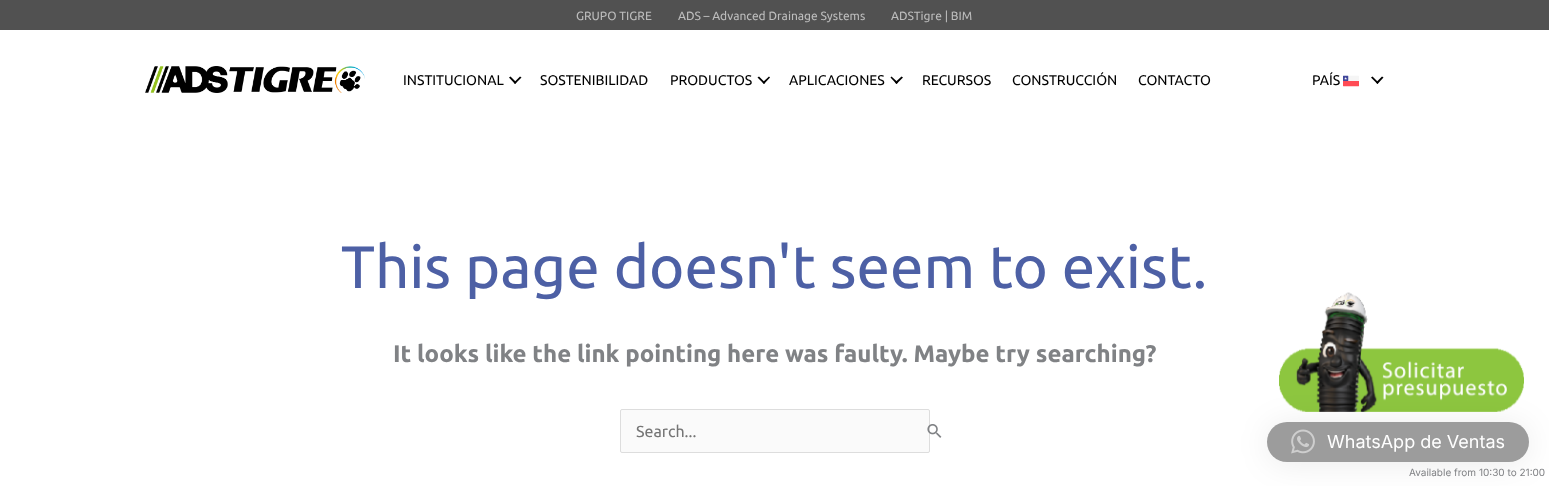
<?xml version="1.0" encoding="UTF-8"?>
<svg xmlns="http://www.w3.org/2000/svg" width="1549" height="486">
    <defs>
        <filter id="blur1" x="-50%" y="-200%" width="200%" height="500%"><feGaussianBlur stdDeviation="16"/></filter>
    </defs>
    <rect width="100%" height="100%" fill="#FFFFFF"/>
    <rect x="0" y="0" width="1549" height="30" fill="#515151"/>
    <text x="576" y="20" font-family="Ubuntu" font-size="12" fill="#BCBCBC">GRUPO TIGRE</text>
    <text x="678" y="20" font-family="Ubuntu" font-size="12" fill="#BCBCBC">ADS – Advanced Drainage Systems</text>
    <text x="891" y="20" font-family="Ubuntu" font-size="12" fill="#BCBCBC">ADSTigre | BIM</text>
    <image x="145" y="66" width="220" height="27" href="img_01.png"/>
    <text x="403" y="85" font-family="Ubuntu" font-size="14" fill="#000000">INSTITUCIONAL</text>
    <path d="M 520 76.5 L 521.5 77.5 L 515 84 L 514 82.5 Z" fill="#000000"/>
    <path d="M 510.5 76.5 L 516.5 82.5 L 515 84 L 509 77.5 Z" fill="#000000"/>
    <text x="540" y="85" font-family="Ubuntu" font-size="14" fill="#000000">SOSTENIBILIDAD</text>
    <text x="670" y="85" font-family="Ubuntu" font-size="14" fill="#000000">PRODUCTOS</text>
    <path d="M 769 76.5 L 770 77.5 L 764 84 L 762.5 82.5 Z" fill="#000000"/>
    <path d="M 759 76.5 L 765 82.5 L 764 84 L 757.5 77.5 Z" fill="#000000"/>
    <text x="789" y="85" font-family="Ubuntu" font-size="14" fill="#000000">APLICACIONES</text>
    <path d="M 901.5 76.5 L 903 77.5 L 896.5 84 L 895 82.5 Z" fill="#000000"/>
    <path d="M 891.5 76.5 L 898 82.5 L 896.5 84 L 890.5 77.5 Z" fill="#000000"/>
    <text x="922" y="85" font-family="Ubuntu" font-size="14" fill="#000000">RECURSOS</text>
    <text x="1012" y="85" font-family="Ubuntu" font-size="14" fill="#000000">CONSTRUCCIÓN</text>
    <text x="1138" y="85" font-family="Ubuntu" font-size="14" fill="#000000">CONTACTO</text>
    <text x="1312" y="85" font-family="Ubuntu" font-size="14" fill="#000000">PAÍS</text>
    <image x="1343" y="75" width="16" height="12" href="img_02.png"/>
    <path d="M 1382 76.5 L 1383.5 77.5 L 1377.5 84 L 1376 82.5 Z" fill="#000000"/>
    <path d="M 1372.5 76.5 L 1378.5 82.5 L 1377.5 84 L 1371 77.5 Z" fill="#000000"/>
    <text x="341" y="288" font-family="Ubuntu" font-size="60" fill="#4D60A5">This page doesn't seem to exist.</text>
    <text x="393" y="362" font-family="Ubuntu" font-size="24" font-weight="700" fill="#808285">It looks like the link pointing here was faulty. Maybe try searching?</text>
    <rect x="620.5" y="409.5" width="309" height="43" rx="1.5" fill="#FAFAFA" stroke="#DDDDDD"/>
    <text x="636" y="437" font-family="Ubuntu" font-size="16" fill="#757575">Search...</text>
    <image x="927" y="424" width="15" height="14" href="img_03.png"/>
    <image x="1279" y="292" width="245" height="120" href="img_04.png"/>
    <rect x="1267" y="424" width="262" height="40" rx="20" fill="#000000" fill-opacity="0.08" filter="url(#blur1)"/>
    <rect x="1267" y="422" width="262" height="40" rx="20" fill="#9C9C9C"/>
    <image x="1291" y="429" width="24" height="25" href="img_05.png"/>
    <text x="1327" y="448" font-family="Inter" font-size="18" fill="#FFFFFF">WhatsApp de Ventas</text>
    <text x="1409" y="476" font-family="Inter" font-size="10" fill="#808285">Available from 10:30 to 21:00</text>
</svg>
